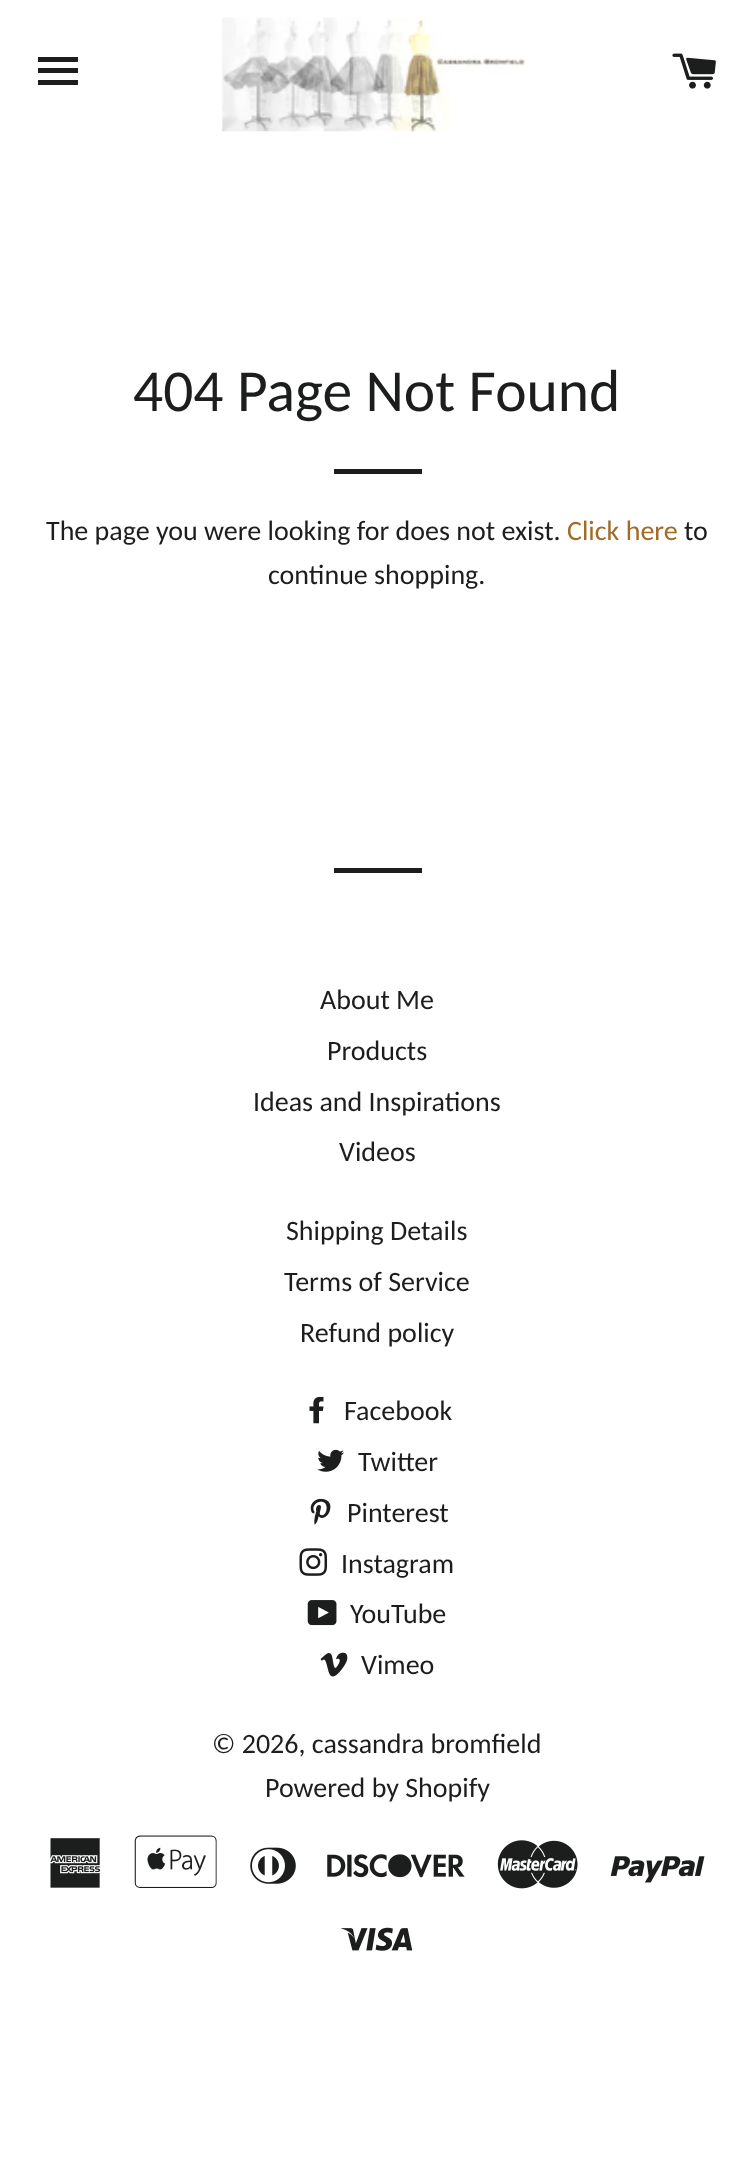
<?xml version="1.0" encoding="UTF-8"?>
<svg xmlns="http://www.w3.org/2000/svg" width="754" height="2167">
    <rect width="100%" height="100%" fill="#FFFFFF"/>
    <path d="M 38 57 H 78 V 62 H 38 Z M 38 68 H 78 V 73 H 38 Z M 38 80 H 78 V 85 H 38 Z" fill="#1C1D1D"/>
    <image x="222" y="17" width="304" height="115" href="img_01.png"/>
    <image x="672" y="53" width="44" height="36" href="img_02.png"/>
    <text x="133" y="411" font-family="Carlito" font-size="59.5" fill="#1C1D1D">404 Page Not Found</text>
    <rect x="334" y="469" width="88" height="5" fill="#1C1D1D"/>
    <text x="46" y="540" font-family="Carlito" font-size="28" fill="#1C1D1D">The page you were looking for does not exist.</text>
    <text x="567" y="540" font-family="Carlito" font-size="28" fill="#A26B25">Click here</text>
    <text x="684" y="540" font-family="Carlito" font-size="28" fill="#1C1D1D">to</text>
    <text x="268" y="584" font-family="Carlito" font-size="28" fill="#1C1D1D">continue shopping.</text>
    <rect x="334" y="868" width="88" height="5" fill="#1C1D1D"/>
    <text x="320" y="1009" font-family="Carlito" font-size="28" fill="#1C1D1D">About Me</text>
    <text x="327" y="1060" font-family="Carlito" font-size="28" fill="#1C1D1D">Products</text>
    <text x="253" y="1111" font-family="Carlito" font-size="28" fill="#1C1D1D">Ideas and Inspirations</text>
    <text x="339" y="1161" font-family="Carlito" font-size="28" fill="#1C1D1D">Videos</text>
    <text x="286" y="1240" font-family="Carlito" font-size="28" fill="#1C1D1D">Shipping Details</text>
    <text x="284" y="1291" font-family="Carlito" font-size="28" fill="#1C1D1D">Terms of Service</text>
    <text x="300" y="1342" font-family="Carlito" font-size="28" fill="#1C1D1D">Refund policy</text>
    <image x="309" y="1396" width="15" height="28" href="img_03.png"/>
    <text x="344" y="1420" font-family="Carlito" font-size="28" fill="#1C1D1D">Facebook</text>
    <image x="317" y="1449" width="27" height="23" href="img_04.png"/>
    <text x="358" y="1471" font-family="Carlito" font-size="28" fill="#1C1D1D">Twitter</text>
    <image x="310" y="1498" width="21" height="27" href="img_05.png"/>
    <text x="347" y="1522" font-family="Carlito" font-size="28" fill="#1C1D1D">Pinterest</text>
    <image x="299" y="1548" width="29" height="28" href="img_06.png"/>
    <text x="341" y="1573" font-family="Carlito" font-size="28" fill="#1C1D1D">Instagram</text>
    <image x="307" y="1600" width="30" height="26" href="img_07.png"/>
    <text x="350" y="1623" font-family="Carlito" font-size="28" fill="#1C1D1D">YouTube</text>
    <image x="320" y="1652" width="28" height="25" href="img_08.png"/>
    <text x="361" y="1674" font-family="Carlito" font-size="28" fill="#1C1D1D">Vimeo</text>
    <text x="212" y="1753" font-family="Carlito" font-size="28" fill="#1C1D1D">© 2026, cassandra bromfield</text>
    <text x="265" y="1797" font-family="Carlito" font-size="28" fill="#1C1D1D">Powered by Shopify</text>
    <image x="50" y="1838" width="50" height="50" href="img_09.png"/>
    <image x="134" y="1835" width="83" height="53" href="img_10.png"/>
    <image x="250" y="1847" width="46" height="37" href="img_11.png"/>
    <image x="327" y="1854" width="138" height="24" href="img_12.png"/>
    <image x="497" y="1840" width="81" height="49" href="img_13.png"/>
    <image x="610" y="1856" width="95" height="27" href="img_14.png"/>
    <image x="341" y="1927" width="72" height="24" href="img_15.png"/>
</svg>
